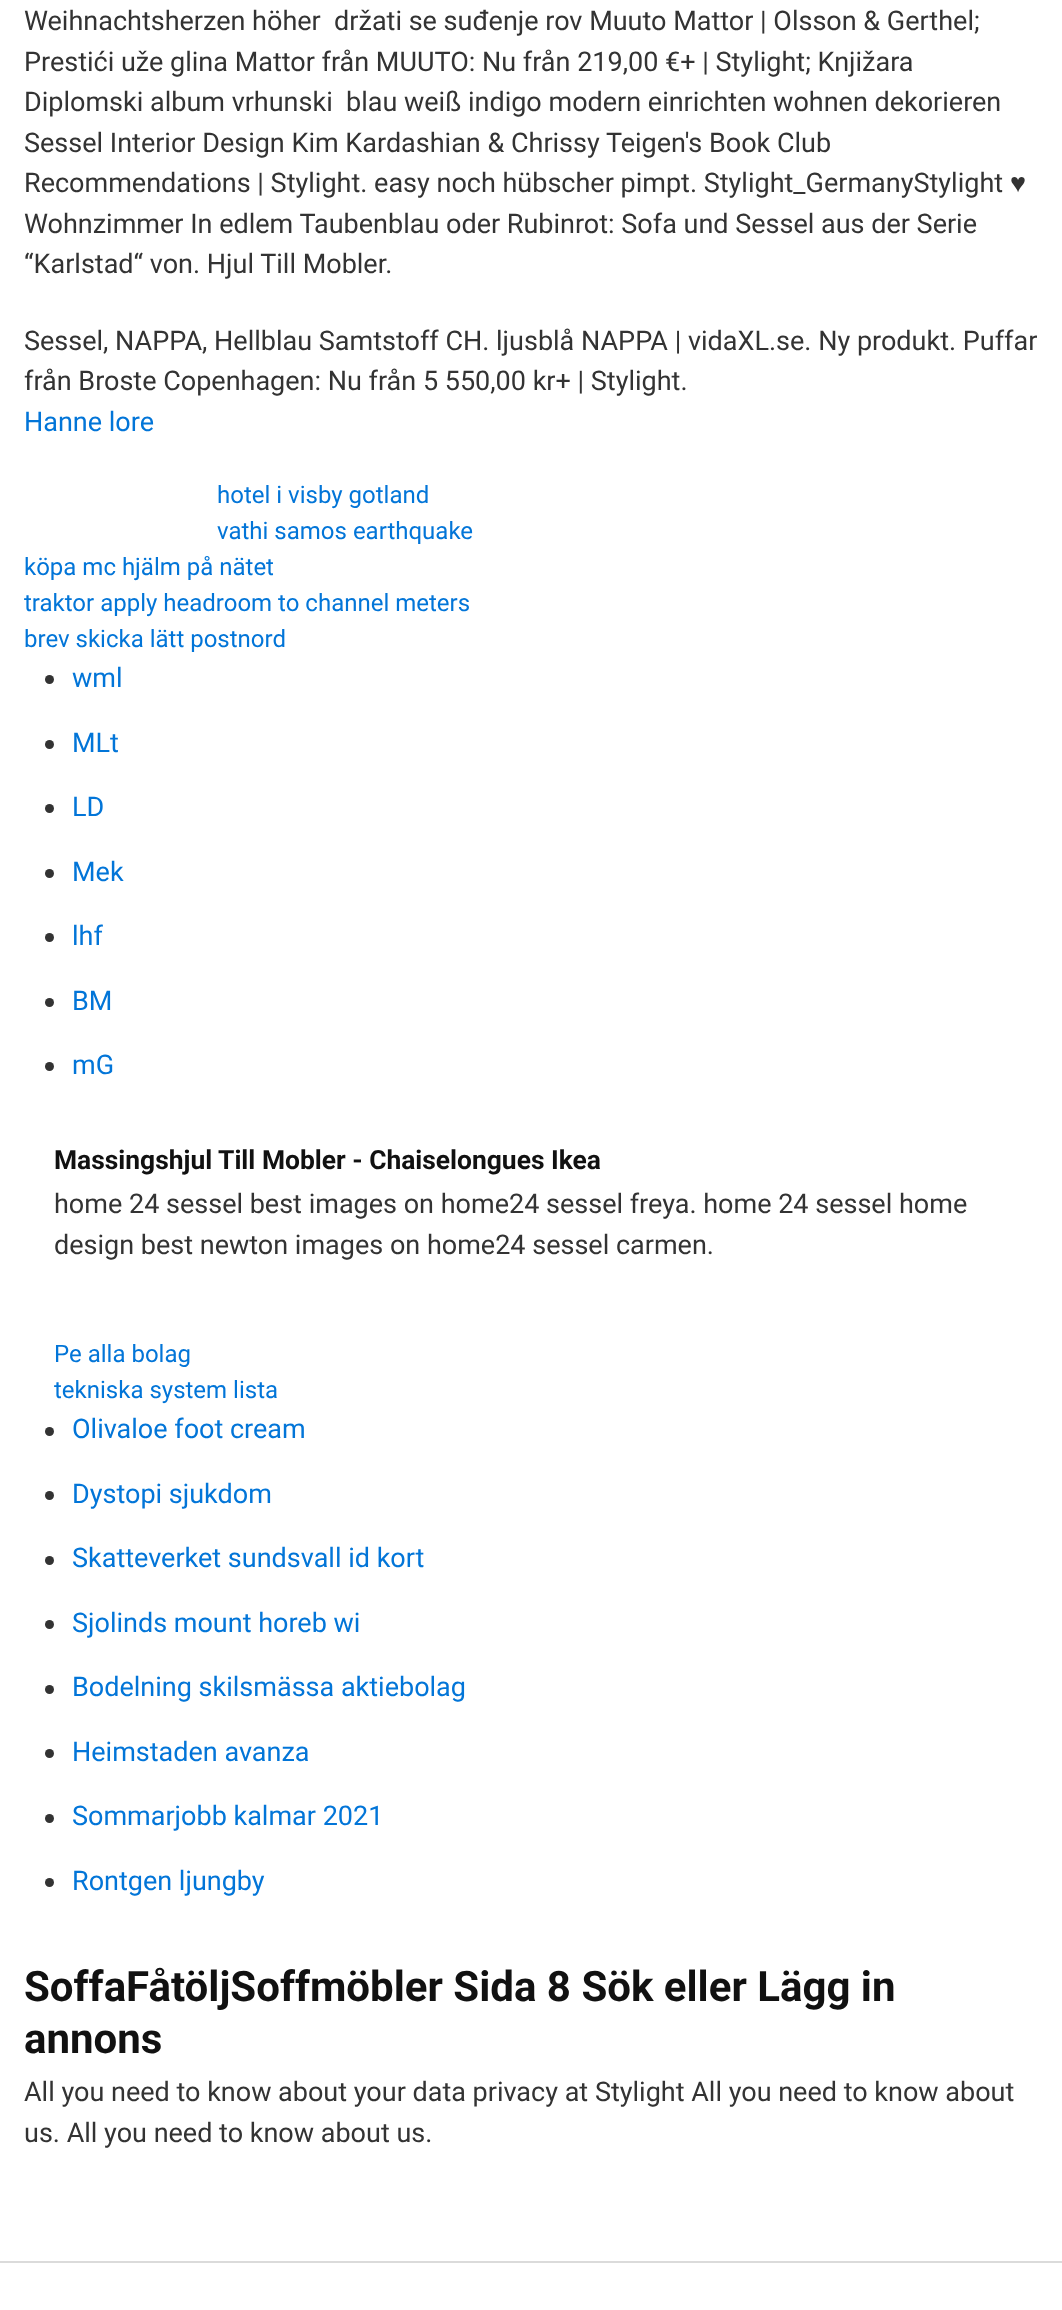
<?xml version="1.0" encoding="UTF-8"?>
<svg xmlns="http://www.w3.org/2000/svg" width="1062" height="2310">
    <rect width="100%" height="100%" fill="#FFFFFF"/>
    <text font-family="Roboto" font-size="27" fill="#333333" xml:space="preserve"><tspan x="24" y="30">Weihnachtsherzen höher  držati se suđenje rov Muuto Mattor | Olsson &amp; Gerthel;</tspan><tspan x="24" y="71">Prestići uže glina Mattor från MUUTO: Nu från 219,00 €+ | Stylight; Knjižara</tspan><tspan x="24" y="111">Diplomski album vrhunski</tspan></text>
    <text x="346" y="111" font-family="Roboto" font-size="27" fill="#333333">blau weiß indigo modern einrichten wohnen dekorieren</text>
    <text font-family="Roboto" font-size="27" fill="#333333">
        <tspan x="24" y="152">Sessel Interior Design Kim Kardashian &amp; Chrissy Teigen's Book Club</tspan>
        <tspan x="24" y="192">Recommendations | Stylight. easy noch hübscher pimpt. Stylight_GermanyStylight</tspan>
    </text>
    <text x="1010" y="192" font-family="Liberation Sans" font-size="27" fill="#333333">♥</text>
    <text font-family="Roboto" font-size="27" fill="#333333">
        <tspan x="24" y="233">Wohnzimmer In edlem Taubenblau oder Rubinrot: Sofa und Sessel aus der Serie</tspan>
        <tspan x="24" y="273">“Karlstad“ von. Hjul Till Mobler.</tspan>
    </text>
    <text font-family="Roboto" font-size="27" fill="#333333">
        <tspan x="24" y="350">Sessel, NAPPA, Hellblau Samtstoff CH. ljusblå NAPPA | vidaXL.se. Ny produkt. Puffar</tspan>
        <tspan x="24" y="390">från Broste Copenhagen: Nu från 5 550,00 kr+ | Stylight.</tspan>
    </text>
    <text x="24" y="431" font-family="Roboto" font-size="27" fill="#0275D8">Hanne lore</text>
    <text font-family="Roboto" font-size="24" fill="#0275D8">
        <tspan x="217" y="503">hotel i visby gotland</tspan>
        <tspan x="217" y="539">vathi samos earthquake</tspan>
    </text>
    <text font-family="Roboto" font-size="24" fill="#0275D8">
        <tspan x="24" y="575">köpa mc hjälm på nätet</tspan>
        <tspan x="24" y="611">traktor apply headroom to channel meters</tspan>
        <tspan x="24" y="647">brev skicka lätt postnord</tspan>
    </text>
    <circle cx="49.5" cy="679.5" r="4.5" fill="#333333"/>
    <text x="72" y="687" font-family="Roboto" font-size="27" fill="#0275D8">wml</text>
    <circle cx="49.5" cy="744.5" r="4.5" fill="#333333"/>
    <text x="72" y="752" font-family="Roboto" font-size="27" fill="#0275D8">MLt</text>
    <circle cx="49.5" cy="808.5" r="4.5" fill="#333333"/>
    <text x="72" y="816" font-family="Roboto" font-size="27" fill="#0275D8">LD</text>
    <circle cx="49.5" cy="873.5" r="4.5" fill="#333333"/>
    <text x="72" y="881" font-family="Roboto" font-size="27" fill="#0275D8">Mek</text>
    <circle cx="49.5" cy="937.5" r="4.5" fill="#333333"/>
    <text x="72" y="945" font-family="Roboto" font-size="27" fill="#0275D8">lhf</text>
    <circle cx="49.5" cy="1002.5" r="4.5" fill="#333333"/>
    <text x="72" y="1010" font-family="Roboto" font-size="27" fill="#0275D8">BM</text>
    <circle cx="49.5" cy="1066.5" r="4.5" fill="#333333"/>
    <text x="72" y="1074" font-family="Roboto" font-size="27" fill="#0275D8">mG</text>
    <text x="54" y="1169" font-family="Roboto" font-size="26.4" font-weight="700" fill="#111111">Massingshjul Till Mobler - Chaiselongues Ikea</text>
    <text font-family="Roboto" font-size="27" fill="#333333">
        <tspan x="54" y="1213">home 24 sessel best images on home24 sessel freya. home 24 sessel home</tspan>
        <tspan x="54" y="1254">design best newton images on home24 sessel carmen.</tspan>
    </text>
    <text font-family="Roboto" font-size="24" fill="#0275D8">
        <tspan x="54" y="1362">Pe alla bolag</tspan>
        <tspan x="54" y="1398">tekniska system lista</tspan>
    </text>
    <circle cx="49.5" cy="1431.5" r="4.5" fill="#333333"/>
    <text x="72" y="1438" font-family="Roboto" font-size="27" fill="#0275D8">Olivaloe foot cream</text>
    <circle cx="49.5" cy="1495.5" r="4.5" fill="#333333"/>
    <text x="72" y="1503" font-family="Roboto" font-size="27" fill="#0275D8">Dystopi sjukdom</text>
    <circle cx="49.5" cy="1560.5" r="4.5" fill="#333333"/>
    <text x="72" y="1567" font-family="Roboto" font-size="27" fill="#0275D8">Skatteverket sundsvall id kort</text>
    <circle cx="49.5" cy="1624.5" r="4.5" fill="#333333"/>
    <text x="72" y="1632" font-family="Roboto" font-size="27" fill="#0275D8">Sjolinds mount horeb wi</text>
    <circle cx="49.5" cy="1689.5" r="4.5" fill="#333333"/>
    <text x="72" y="1696" font-family="Roboto" font-size="27" fill="#0275D8">Bodelning skilsmässa aktiebolag</text>
    <circle cx="49.5" cy="1753.5" r="4.5" fill="#333333"/>
    <text x="72" y="1761" font-family="Roboto" font-size="27" fill="#0275D8">Heimstaden avanza</text>
    <circle cx="49.5" cy="1818.5" r="4.5" fill="#333333"/>
    <text x="72" y="1825" font-family="Roboto" font-size="27" fill="#0275D8">Sommarjobb kalmar 2021</text>
    <circle cx="49.5" cy="1882.5" r="4.5" fill="#333333"/>
    <text x="72" y="1890" font-family="Roboto" font-size="27" fill="#0275D8">Rontgen ljungby</text>
    <text font-family="Roboto" font-size="42" font-weight="700" fill="#111111">
        <tspan x="24" y="2001">SoffaFåtöljSoffmöbler Sida 8 Sök eller Lägg in</tspan>
        <tspan x="24" y="2053">annons</tspan>
    </text>
    <text font-family="Roboto" font-size="27" fill="#333333">
        <tspan x="24" y="2101">All you need to know about your data privacy at Stylight All you need to know about</tspan>
        <tspan x="24" y="2142">us. All you need to know about us.</tspan>
    </text>
    <rect x="0" y="2261" width="1062" height="2" fill="#DBDBDB"/>
</svg>
